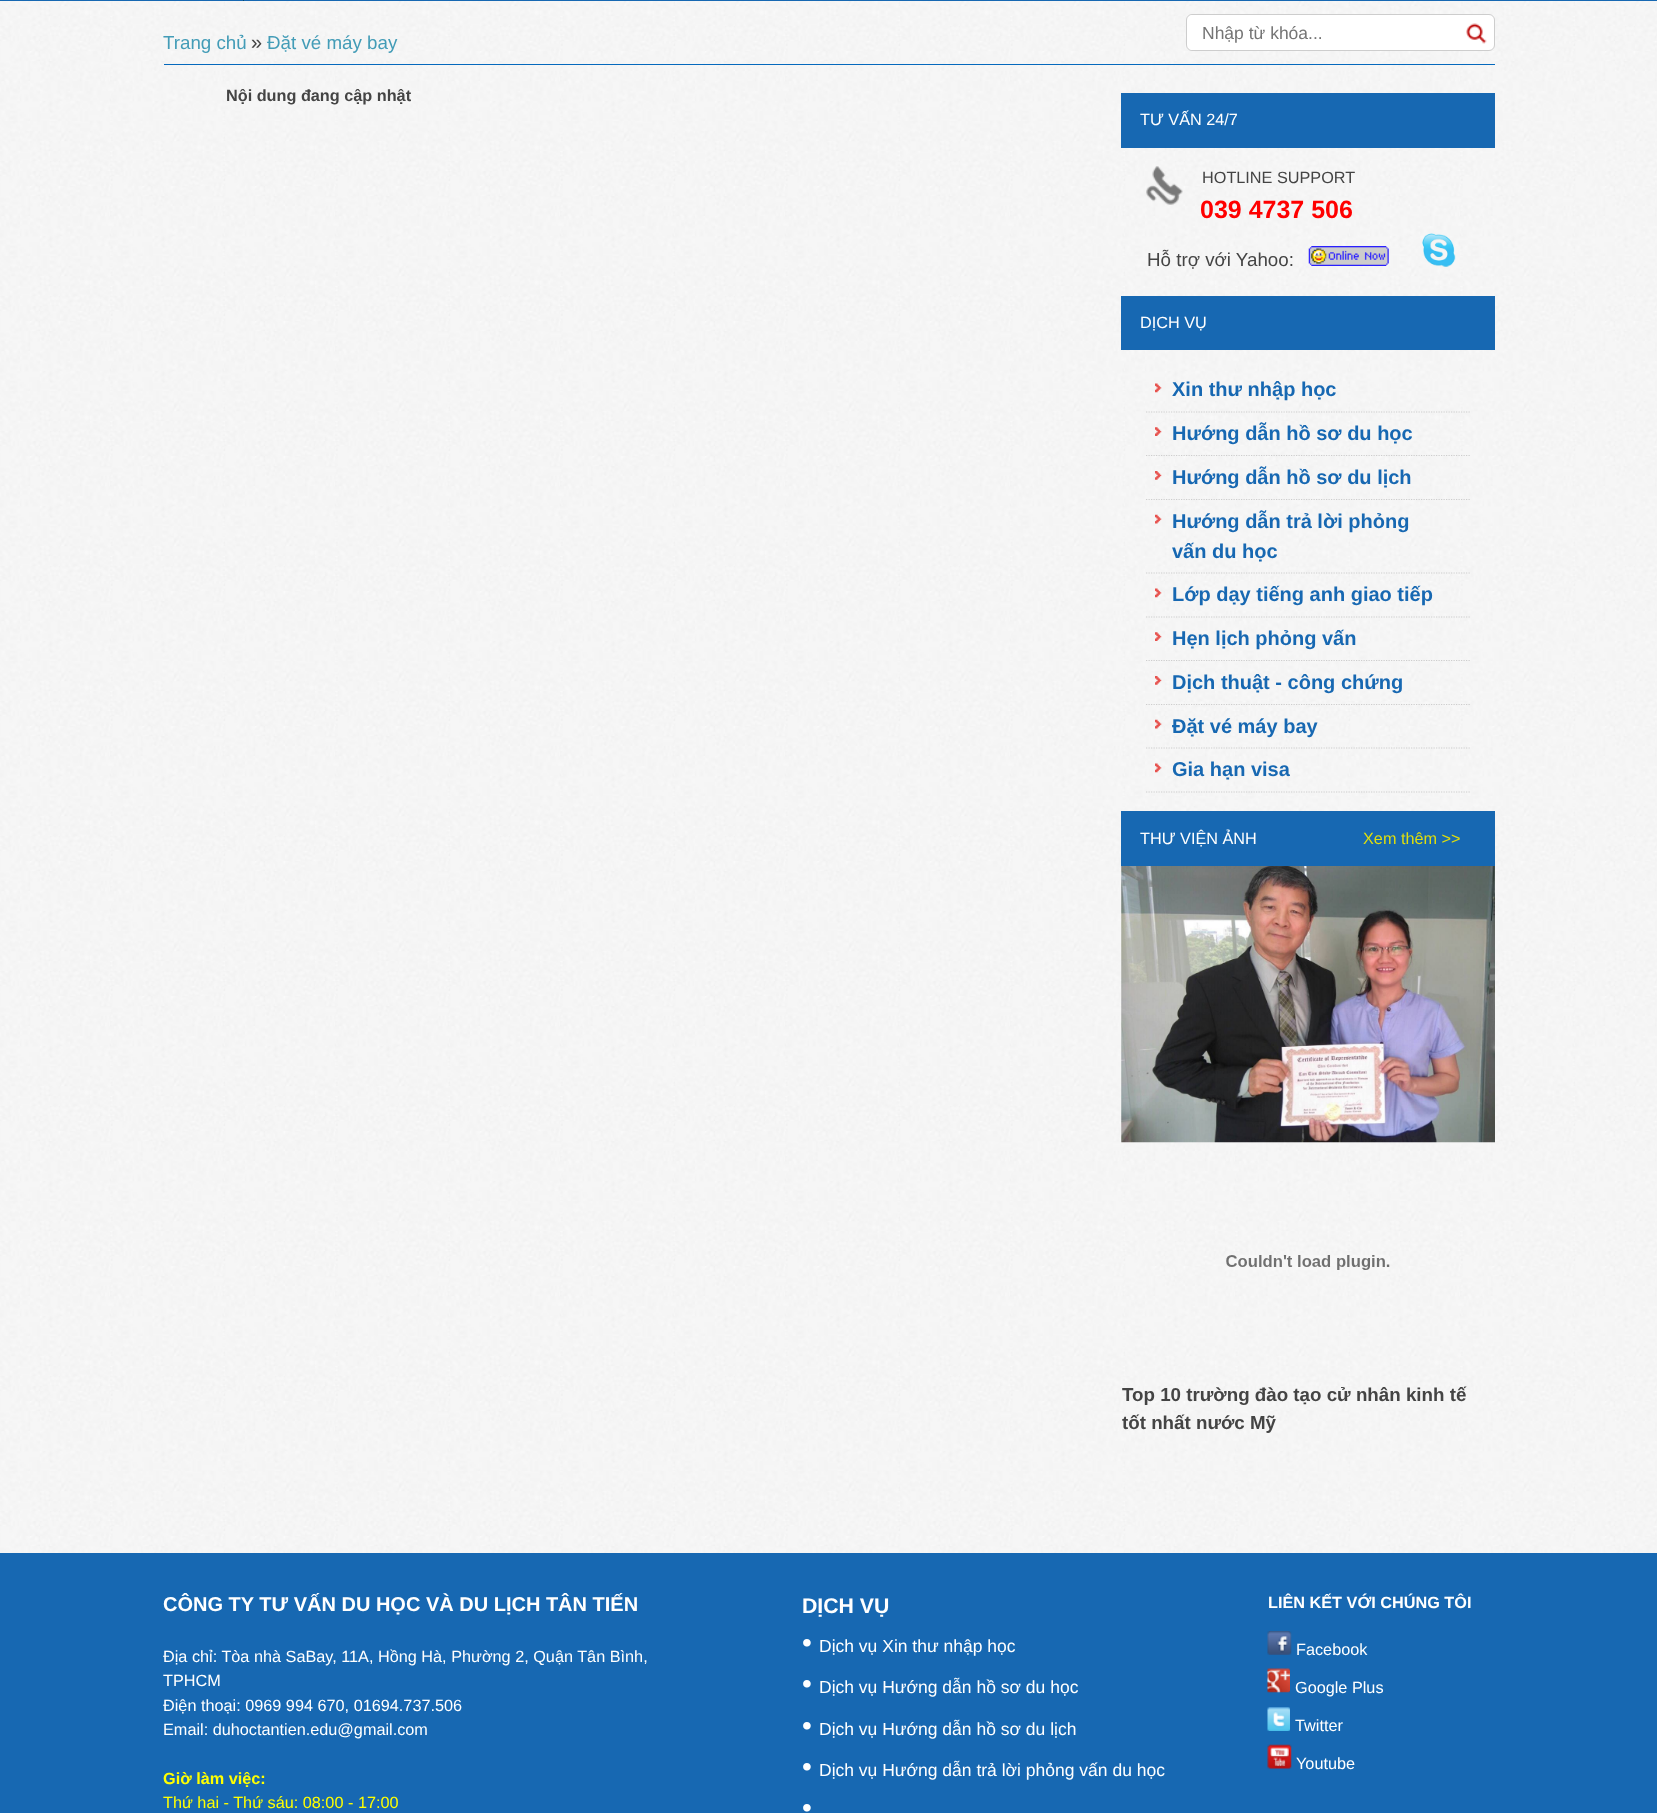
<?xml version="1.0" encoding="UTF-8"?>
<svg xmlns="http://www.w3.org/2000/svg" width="1657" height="1813">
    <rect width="100%" height="100%" fill="#FFFFFF"/>
    <image x="0" y="1" width="1657" height="1552" href="img_01.png"/>
    <rect x="0" y="0" width="1657" height="1" fill="#1768B2"/>
    <rect x="243" y="0" width="1" height="1" fill="#094D6F"/>
    <rect x="1186.5" y="14.5" width="308" height="36" rx="5.5" fill="#FFFFFF" stroke="#CDCDCD"/>
    <path d="M 1193 15 H 1449 V 50 H 1193 C 1190 50 1188 48 1188 45 V 20 C 1188 17 1190 15 1193 15 Z" fill="#FFFFFF"/>
    <text x="1202" y="39" font-family="Liberation Sans" font-size="17.5" fill="#757575">Nhập từ khóa...</text>
    <image x="1466" y="23" width="21" height="21" href="img_02.png"/>
    <text x="163" y="49" font-family="Liberation Sans" font-size="18.75" fill="#439CB7">Trang chủ</text>
    <text x="251" y="49" font-family="Liberation Sans" font-size="20" fill="#444444">»</text>
    <text x="267" y="49" font-family="Liberation Sans" font-size="18.75" fill="#439CB7">Đặt vé máy bay</text>
    <rect x="164" y="64" width="1331" height="1" fill="#0569BD"/>
    <text x="226" y="101" font-family="Liberation Sans" font-size="16.25" font-weight="700" fill="#444444">Nội dung đang cập nhật</text>
    <rect x="1121" y="93" width="374" height="55" fill="#1768B2"/>
    <text x="1140" y="125" font-family="Liberation Sans" font-size="16.25" fill="#FFFFFF">TƯ VẤN 24/7</text>
    <image x="1146" y="166" width="37" height="39" href="img_03.png"/>
    <text x="1202" y="183" font-family="Liberation Sans" font-size="16.25" fill="#444444">HOTLINE SUPPORT</text>
    <text x="1200" y="218" font-family="Liberation Sans" font-size="25" font-weight="700" fill="#FF0000">039 4737 506</text>
    <text x="1147" y="266" font-family="Liberation Sans" font-size="18.75" fill="#444444">Hỗ trợ với Yahoo:</text>
    <image x="1308" y="246" width="81" height="20" href="img_04.png"/>
    <image x="1422" y="233" width="34" height="34" href="img_05.png"/>
    <rect x="1121" y="296" width="374" height="54" fill="#1768B2"/>
    <text x="1140" y="328" font-family="Liberation Sans" font-size="16.25" fill="#FFFFFF">DỊCH VỤ</text>
    <image x="1155" y="383" width="7" height="10" href="img_06.png"/>
    <path d="M 1146 412 H 1470" fill="none" stroke="#CDCDCD" stroke-width="1.2" stroke-dasharray="1.25 1.25"/>
    <text x="1172" y="396" font-family="Liberation Sans" font-size="20" font-weight="700" fill="#1768B2">Xin thư nhập học</text>
    <image x="1155" y="427" width="7" height="9" href="img_07.png"/>
    <path d="M 1146 455.5 H 1470" fill="none" stroke="#CDCDCD" stroke-width="1.2" stroke-dasharray="1.25 1.25"/>
    <text x="1172" y="440" font-family="Liberation Sans" font-size="20" font-weight="700" fill="#1768B2">Hướng dẫn hồ sơ du học</text>
    <image x="1155" y="471" width="7" height="9" href="img_08.png"/>
    <path d="M 1146 499.5 H 1470" fill="none" stroke="#CDCDCD" stroke-width="1.2" stroke-dasharray="1.25 1.25"/>
    <text x="1172" y="484" font-family="Liberation Sans" font-size="20" font-weight="700" fill="#1768B2">Hướng dẫn hồ sơ du lịch</text>
    <image x="1155" y="514" width="7" height="10" href="img_09.png"/>
    <path d="M 1146 573 H 1470" fill="none" stroke="#CDCDCD" stroke-width="1.2" stroke-dasharray="1.25 1.25"/>
    <text font-family="Liberation Sans" font-size="20" font-weight="700" fill="#1768B2">
        <tspan x="1172" y="528">Hướng dẫn trả lời phỏng</tspan>
        <tspan x="1172" y="558">vấn du học</tspan>
    </text>
    <image x="1155" y="588" width="7" height="10" href="img_10.png"/>
    <path d="M 1146 617 H 1470" fill="none" stroke="#CDCDCD" stroke-width="1.2" stroke-dasharray="1.25 1.25"/>
    <text x="1172" y="601" font-family="Liberation Sans" font-size="20" font-weight="700" fill="#1768B2">Lớp dạy tiếng anh giao tiếp</text>
    <image x="1155" y="632" width="7" height="9" href="img_11.png"/>
    <path d="M 1146 660.5 H 1470" fill="none" stroke="#CDCDCD" stroke-width="1.2" stroke-dasharray="1.25 1.25"/>
    <text x="1172" y="645" font-family="Liberation Sans" font-size="20" font-weight="700" fill="#1768B2">Hẹn lịch phỏng vấn</text>
    <image x="1155" y="676" width="7" height="9" href="img_12.png"/>
    <path d="M 1146 704.5 H 1470" fill="none" stroke="#CDCDCD" stroke-width="1.2" stroke-dasharray="1.25 1.25"/>
    <text x="1172" y="689" font-family="Liberation Sans" font-size="20" font-weight="700" fill="#1768B2">Dịch thuật - công chứng</text>
    <image x="1155" y="719" width="7" height="10" href="img_13.png"/>
    <path d="M 1146 748 H 1470" fill="none" stroke="#CDCDCD" stroke-width="1.2" stroke-dasharray="1.25 1.25"/>
    <text x="1172" y="733" font-family="Liberation Sans" font-size="20" font-weight="700" fill="#1768B2">Đặt vé máy bay</text>
    <image x="1155" y="763" width="7" height="10" href="img_14.png"/>
    <path d="M 1146 792 H 1470" fill="none" stroke="#CDCDCD" stroke-width="1.2" stroke-dasharray="1.25 1.25"/>
    <text x="1172" y="776" font-family="Liberation Sans" font-size="20" font-weight="700" fill="#1768B2">Gia hạn visa</text>
    <rect x="1121" y="811" width="374" height="55" fill="#1768B2"/>
    <text x="1140" y="844" font-family="Liberation Sans" font-size="16.25" fill="#FFFFFF">THƯ VIỆN ẢNH</text>
    <text x="1363" y="844" font-family="Liberation Sans" font-size="16.25" fill="#E0DE0C">Xem thêm &gt;&gt;</text>
    <image x="1121" y="866" width="374" height="277" href="img_15.png"/>
    <image x="1226" y="1255" width="164" height="15" href="img_16.png"/>
    <text font-family="Liberation Sans" font-size="18.75" font-weight="700" fill="#444444">
        <tspan x="1122" y="1401">Top 10 trường đào tạo cử nhân kinh tế</tspan>
        <tspan x="1122" y="1429">tốt nhất nước Mỹ</tspan>
    </text>
    <rect x="0" y="1553" width="1657" height="260" fill="#1768B2"/>
    <text x="163" y="1611" font-family="Liberation Sans" font-size="20" font-weight="700" fill="#FFFFFF">CÔNG TY TƯ VẤN DU HỌC VÀ DU LỊCH TÂN TIẾN</text>
    <text font-family="Liberation Sans" font-size="16.25" fill="#FFFFFF">
        <tspan x="163" y="1662">Địa chỉ: Tòa nhà SaBay, 11A, Hồng Hà, Phường 2, Quận Tân Bình,</tspan>
        <tspan x="163" y="1686">TPHCM</tspan>
        <tspan x="163" y="1711">Điện thoại: 0969 994 670, 01694.737.506</tspan>
        <tspan x="163" y="1735">Email: duhoctantien.edu@gmail.com</tspan>
    </text>
    <text x="163" y="1784" font-family="Liberation Sans" font-size="16.25" font-weight="700" fill="#FFFF00">Giờ làm việc:</text>
    <text x="163" y="1808" font-family="Liberation Sans" font-size="16.25" fill="#FFFF00">Thứ hai - Thứ sáu: 08:00 - 17:00</text>
    <text x="802" y="1613" font-family="Liberation Sans" font-size="21.25" font-weight="700" fill="#FFFFFF">DỊCH VỤ</text>
    <text x="802" y="1652" font-family="Liberation Sans" font-size="28" fill="#FFFFFF">•</text>
    <text x="819" y="1652" font-family="Liberation Sans" font-size="17.5" fill="#FFFFFF">Dịch vụ Xin thư nhập học</text>
    <text x="802" y="1693" font-family="Liberation Sans" font-size="28" fill="#FFFFFF">•</text>
    <text x="819" y="1693" font-family="Liberation Sans" font-size="17.5" fill="#FFFFFF">Dịch vụ Hướng dẫn hồ sơ du học</text>
    <text x="802" y="1735" font-family="Liberation Sans" font-size="28" fill="#FFFFFF">•</text>
    <text x="819" y="1735" font-family="Liberation Sans" font-size="17.5" fill="#FFFFFF">Dịch vụ Hướng dẫn hồ sơ du lịch</text>
    <text x="802" y="1776" font-family="Liberation Sans" font-size="28" fill="#FFFFFF">•</text>
    <text x="819" y="1776" font-family="Liberation Sans" font-size="17.5" fill="#FFFFFF">Dịch vụ Hướng dẫn trả lời phỏng vấn du học</text>
    <text x="802" y="1817" font-family="Liberation Sans" font-size="28" fill="#FFFFFF">•</text>
    <text x="1268" y="1608" font-family="Liberation Sans" font-size="16.25" font-weight="700" fill="#FFFFFF">LIÊN KẾT VỚI CHÚNG TÔI</text>
    <image x="1267" y="1631" width="25" height="24" href="img_17.png"/>
    <text x="1296" y="1655" font-family="Liberation Sans" font-size="16.25" fill="#FFFFFF">Facebook</text>
    <image x="1267" y="1668" width="23" height="25" href="img_18.png"/>
    <text x="1295" y="1693" font-family="Liberation Sans" font-size="16.25" fill="#FFFFFF">Google Plus</text>
    <image x="1267" y="1707" width="23" height="24" href="img_19.png"/>
    <text x="1295" y="1731" font-family="Liberation Sans" font-size="16.25" fill="#FFFFFF">Twitter</text>
    <image x="1267" y="1744" width="25" height="25" href="img_20.png"/>
    <text x="1296" y="1769" font-family="Liberation Sans" font-size="16.25" fill="#FFFFFF">Youtube</text>
</svg>
